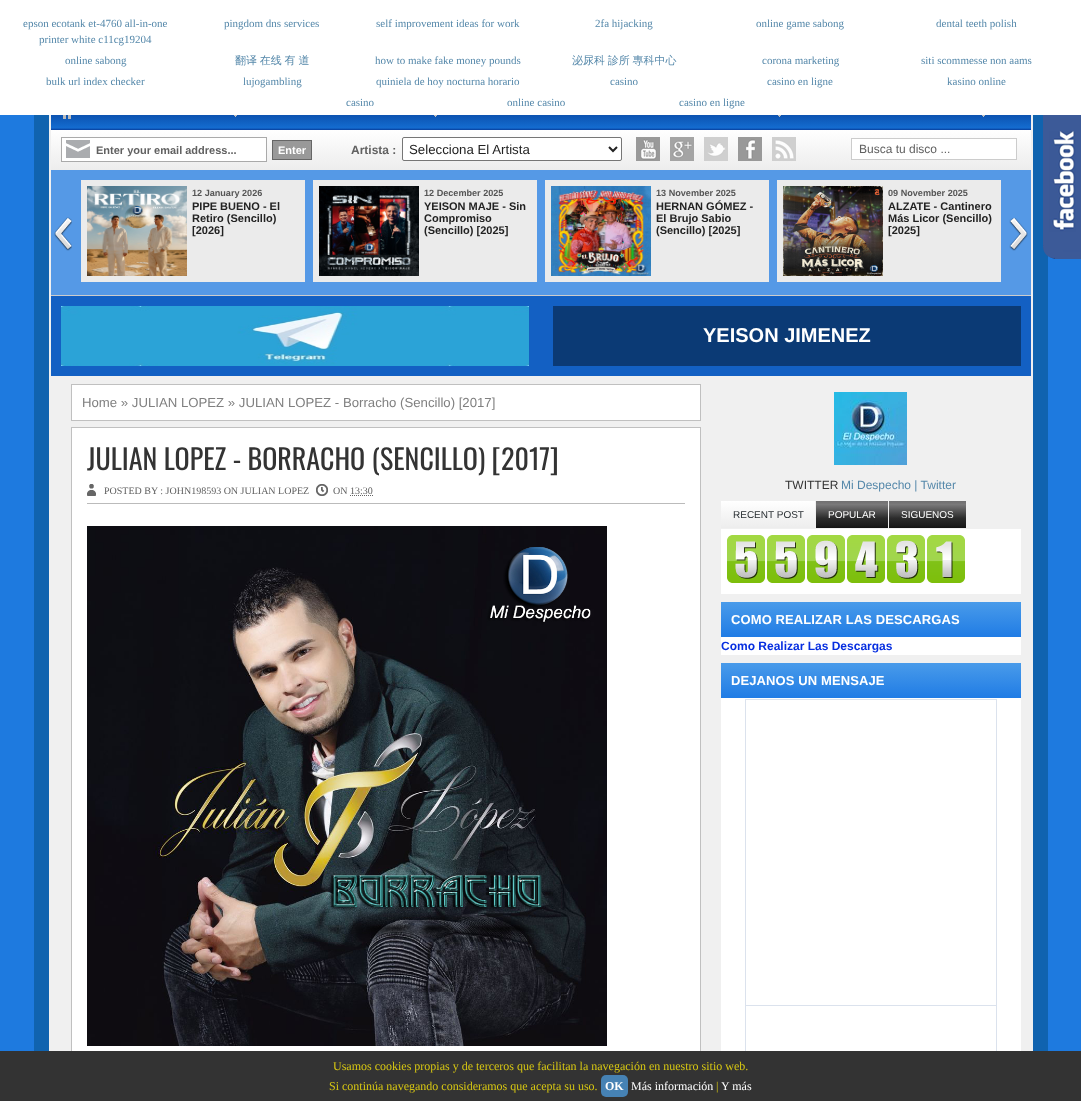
<?xml version="1.0" encoding="UTF-8"?>
<svg xmlns="http://www.w3.org/2000/svg" width="1081" height="1101">
    <defs>
        <linearGradient id="g1" gradientUnits="userSpaceOnUse" x1="541" y1="100" x2="541" y2="130"><stop offset="0" stop-color="#03358C"/><stop offset="0.93" stop-color="#146CD0"/><stop offset="1" stop-color="#073D9B"/></linearGradient>
        <linearGradient id="g2" gradientUnits="userSpaceOnUse" x1="541" y1="130" x2="541" y2="170"><stop offset="0" stop-color="#FFFFFF"/><stop offset="0.47" stop-color="#F6F6F6"/><stop offset="1" stop-color="#EDEDED"/></linearGradient>
        <linearGradient id="g3" gradientUnits="userSpaceOnUse" x1="768" y1="501" x2="768" y2="528"><stop offset="0" stop-color="#FFFFFF"/><stop offset="0.47" stop-color="#F6F6F6"/><stop offset="1" stop-color="#EDEDED"/></linearGradient>
        <linearGradient id="g4" gradientUnits="userSpaceOnUse" x1="852" y1="501" x2="852" y2="528"><stop offset="0" stop-color="#706F70"/><stop offset="0.13" stop-color="#7A797A"/><stop offset="0.64" stop-color="#2B2B2B"/><stop offset="0.91" stop-color="#1C1C1C"/><stop offset="1" stop-color="#131313"/></linearGradient>
        <linearGradient id="g5" gradientUnits="userSpaceOnUse" x1="928" y1="501" x2="928" y2="528"><stop offset="0" stop-color="#706F70"/><stop offset="0.13" stop-color="#7A797A"/><stop offset="0.64" stop-color="#2B2B2B"/><stop offset="0.91" stop-color="#1C1C1C"/><stop offset="1" stop-color="#131313"/></linearGradient>
        <linearGradient id="g6" gradientUnits="userSpaceOnUse" x1="871" y1="602" x2="871" y2="637"><stop offset="0" stop-color="#499BEA"/><stop offset="1" stop-color="#207CE5"/></linearGradient>
        <linearGradient id="g7" gradientUnits="userSpaceOnUse" x1="871" y1="663" x2="871" y2="698"><stop offset="0" stop-color="#499BEA"/><stop offset="1" stop-color="#207CE5"/></linearGradient>
    </defs>
    <rect width="100%" height="100%" fill="#1E7ADF"/>
    <rect x="0" y="0" width="1081" height="115" fill="#FFFFFF"/>
    <text x="23" y="27" font-family="Liberation Serif" font-size="11" fill="#5588AA">epson ecotank et-4760 all-in-one</text>
    <text x="39" y="43" font-family="Liberation Serif" font-size="11" fill="#5588AA">printer white c11cg19204</text>
    <text x="224" y="27" font-family="Liberation Serif" font-size="11" fill="#5588AA">pingdom dns services</text>
    <text x="376" y="27" font-family="Liberation Serif" font-size="11" fill="#5588AA">self improvement ideas for work</text>
    <text x="595" y="27" font-family="Liberation Serif" font-size="11" fill="#5588AA">2fa hijacking</text>
    <text x="756" y="27" font-family="Liberation Serif" font-size="11" fill="#5588AA">online game sabong</text>
    <text x="936" y="27" font-family="Liberation Serif" font-size="11" fill="#5588AA">dental teeth polish</text>
    <text x="65" y="64" font-family="Liberation Serif" font-size="11" fill="#5588AA">online sabong</text>
    <text x="235" y="64" word-spacing="-0.5" font-family="WenQuanYi Zen Hei" font-size="11" font-weight="500" fill="#5588AA">翻译 在线 有 道</text>
    <text x="375" y="64" font-family="Liberation Serif" font-size="11" fill="#5588AA">how to make fake money pounds</text>
    <text x="572" y="64" word-spacing="-0.5" font-family="WenQuanYi Zen Hei" font-size="11" font-weight="500" fill="#5588AA">泌尿科 診所 專科中心</text>
    <text x="762" y="64" font-family="Liberation Serif" font-size="11" fill="#5588AA">corona marketing</text>
    <text x="921" y="64" font-family="Liberation Serif" font-size="11" fill="#5588AA">siti scommesse non aams</text>
    <text x="46" y="85" font-family="Liberation Serif" font-size="11" fill="#5588AA">bulk url index checker</text>
    <text x="243" y="85" font-family="Liberation Serif" font-size="11" fill="#5588AA">lujogambling</text>
    <text x="376" y="85" font-family="Liberation Serif" font-size="11" fill="#5588AA">quiniela de hoy nocturna horario</text>
    <text x="610" y="85" font-family="Liberation Serif" font-size="11" fill="#5588AA">casino</text>
    <text x="767" y="85" font-family="Liberation Serif" font-size="11" fill="#5588AA">casino en ligne</text>
    <text x="947" y="85" font-family="Liberation Serif" font-size="11" fill="#5588AA">kasino online</text>
    <text x="346" y="106" font-family="Liberation Serif" font-size="11" fill="#5588AA">casino</text>
    <text x="507" y="106" font-family="Liberation Serif" font-size="11" fill="#5588AA">online casino</text>
    <text x="679" y="106" font-family="Liberation Serif" font-size="11" fill="#5588AA">casino en ligne</text>
    <rect x="49" y="115" width="984" height="936" fill="#F0F0F0"/>
    <rect x="1033" y="115" width="15" height="936" fill="#1063AF"/>
    <rect x="34" y="115" width="15" height="936" fill="#1063AF"/>
    <rect x="51" y="115" width="980" height="15" fill="url(#g1)"/>
    <image x="63" y="115" width="8" height="4" href="img_01.png"/>
    <image x="234" y="115" width="3" height="2" href="img_02.png"/>
    <image x="434" y="115" width="3" height="2" href="img_02.png"/>
    <image x="778" y="115" width="3" height="2" href="img_02.png"/>
    <image x="982" y="115" width="3" height="2" href="img_02.png"/>
    <rect x="51" y="130" width="980" height="40" fill="url(#g2)"/>
    <rect x="62" y="138" width="204" height="23" fill="#FFFFFF"/>
    <image x="66" y="140" width="24" height="18" href="img_03.png"/>
    <rect x="61.5" y="137.5" width="205" height="24" fill="none" stroke="#AAAAAA"/>
    <text x="96" y="154" font-family="Liberation Sans" font-size="11" font-weight="700" fill="#616161">Enter your email address...</text>
    <rect x="272.5" y="140.5" width="39" height="19" fill="#999999" stroke="#666666"/>
    <text x="278" y="154" font-family="Liberation Sans" font-size="11" font-weight="700" fill="#FFFFFF">Enter</text>
    <text x="351" y="154" font-family="Liberation Sans" font-size="12" font-weight="700" fill="#616161">Artista :</text>
    <rect x="402.5" y="137.5" width="219" height="23" rx="1.5" fill="#FFFFFF" stroke="#767676"/>
    <path d="M 609 147 L 613 151 L 617 147" fill="none" stroke="#222222" stroke-width="2"/>
    <text x="409" y="154" font-family="Liberation Sans" font-size="13.25" fill="#222222">Selecciona El Artista</text>
    <image x="636" y="137" width="24" height="24" href="img_04.png"/>
    <image x="670" y="137" width="24" height="24" href="img_05.png"/>
    <image x="704" y="137" width="24" height="24" href="img_06.png"/>
    <image x="738" y="137" width="24" height="24" href="img_07.png"/>
    <image x="772" y="137" width="24" height="24" href="img_08.png"/>
    <rect x="851.5" y="138.5" width="165" height="21" fill="#FFFFFF" stroke="#CCCCCC"/>
    <text x="859" y="153" font-family="Liberation Sans" font-size="12" fill="#616161">Busca tu disco ...</text>
    <rect x="51" y="170" width="980" height="125" fill="#5599E6"/>
    <rect x="51" y="295" width="980" height="1" fill="#CCCCCC"/>
    <image x="54" y="217" width="18" height="34" href="img_09.png"/>
    <rect x="81" y="180" width="224" height="102" fill="#EBEBEB"/>
    <image x="87" y="186" width="100" height="90" href="img_10.png"/>
    <text x="192" y="196" font-family="Liberation Sans" font-size="9.1" font-weight="700" fill="#555555">12 January 2026</text>
    <text font-family="Liberation Sans" font-size="11" font-weight="700" fill="#222222">
        <tspan x="192" y="210">PIPE BUENO - El</tspan>
        <tspan x="192" y="222">Retiro (Sencillo)</tspan>
        <tspan x="192" y="234">[2026]</tspan>
    </text>
    <rect x="313" y="180" width="224" height="102" fill="#EBEBEB"/>
    <image x="319" y="186" width="100" height="90" href="img_11.png"/>
    <text x="424" y="196" font-family="Liberation Sans" font-size="9.1" font-weight="700" fill="#555555">12 December 2025</text>
    <text font-family="Liberation Sans" font-size="11" font-weight="700" fill="#222222">
        <tspan x="424" y="210">YEISON MAJE - Sin</tspan>
        <tspan x="424" y="222">Compromiso</tspan>
        <tspan x="424" y="234">(Sencillo) [2025]</tspan>
    </text>
    <rect x="545" y="180" width="224" height="102" fill="#EBEBEB"/>
    <image x="551" y="186" width="100" height="90" href="img_12.png"/>
    <text x="656" y="196" font-family="Liberation Sans" font-size="9.1" font-weight="700" fill="#555555">13 November 2025</text>
    <text font-family="Liberation Sans" font-size="11" font-weight="700" fill="#222222">
        <tspan x="656" y="210">HERNAN GÓMEZ -</tspan>
        <tspan x="656" y="222">El Brujo Sabio</tspan>
        <tspan x="656" y="234">(Sencillo) [2025]</tspan>
    </text>
    <rect x="777" y="180" width="224" height="102" fill="#EBEBEB"/>
    <image x="783" y="186" width="100" height="90" href="img_13.png"/>
    <text x="888" y="196" font-family="Liberation Sans" font-size="9.1" font-weight="700" fill="#555555">09 November 2025</text>
    <text font-family="Liberation Sans" font-size="11" font-weight="700" fill="#222222">
        <tspan x="888" y="210">ALZATE - Cantinero</tspan>
        <tspan x="888" y="222">Más Licor (Sencillo)</tspan>
        <tspan x="888" y="234">[2025]</tspan>
    </text>
    <image x="1009" y="218" width="19" height="33" href="img_14.png"/>
    <rect x="51" y="296" width="980" height="80" fill="#1360C3"/>
    <image x="61" y="306" width="468" height="60" href="img_15.png"/>
    <rect x="553" y="306" width="468" height="60" fill="#0B3A75"/>
    <text x="703" y="342" font-family="Liberation Sans" font-size="20" font-weight="700" fill="#FFFFFF">YEISON JIMENEZ</text>
    <rect x="71.5" y="384.5" width="629" height="36" fill="#FFFFFF" stroke="#C0C0C0"/>
    <text x="82" y="407" font-family="Liberation Sans" font-size="13.2" fill="#808080">Home » JULIAN LOPEZ » JULIAN LOPEZ - Borracho (Sencillo) [2017]</text>
    <rect x="72" y="428" width="628" height="623" fill="#FFFFFF"/>
    <rect x="71.5" y="427.5" width="629" height="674" fill="none" stroke="#C0C0C0"/>
    <text x="87" y="470" font-family="Oswald" font-size="28" fill="#333333">JULIAN LOPEZ - BORRACHO (SENCILLO) [2017]</text>
    <rect x="87" y="503" width="598" height="1" fill="#BBBBBB"/>
    <image x="87" y="484" width="9" height="12" href="img_16.png"/>
    <text x="104" y="494" font-family="Liberation Serif" font-size="10" fill="#616161">POSTED BY : JOHN198593 ON JULIAN LOPEZ</text>
    <image x="316" y="484" width="12" height="12" href="img_17.png"/>
    <text x="333" y="494" font-family="Liberation Serif" font-size="10" fill="#616161">ON 13:30</text>
    <path d="M 350 495.5 H 373" fill="none" stroke="#666666" stroke-dasharray="1 1"/>
    <image x="87" y="526" width="520" height="520" href="img_18.png"/>
    <image x="1043" y="115" width="38" height="144" href="img_19.png"/>
    <image x="834" y="392" width="73" height="73" href="img_20.png"/>
    <text x="785" y="489" font-family="Liberation Sans" font-size="12" fill="#333333">TWITTER</text>
    <text x="841" y="489" font-family="Liberation Sans" font-size="12" fill="#5588AA">Mi Despecho | Twitter</text>
    <rect x="0" y="1051" width="1081" height="50" fill="#333333"/>
    <text x="333" y="1070" font-family="Liberation Serif" font-size="12" fill="#D7C712">Usamos cookies propias y de terceros que facilitan la navegación en nuestro sitio web.</text>
    <text x="329" y="1090" font-family="Liberation Serif" font-size="12" fill="#D7C712">Si continúa navegando consideramos que acepta su uso.</text>
    <rect x="601" y="1075" width="27" height="22" rx="5" fill="#4682B4"/>
    <text x="605" y="1090" font-family="Liberation Serif" font-size="12" font-weight="700" fill="#FFFFFF">OK</text>
    <text x="631" y="1090" font-family="Liberation Serif" font-size="12" fill="#FFFFFF">Más información</text>
    <text x="716" y="1090" font-family="Liberation Serif" font-size="12" fill="#D7C712">|</text>
    <text x="721" y="1090" font-family="Liberation Serif" font-size="12" fill="#FFFFFF">Y más</text>
    <rect x="721" y="501" width="94" height="27" fill="url(#g3)"/>
    <text x="733" y="518" font-family="Liberation Sans" font-size="10" fill="#282E32">RECENT POST</text>
    <rect x="816" y="501" width="72" height="27" fill="url(#g4)"/>
    <text x="828" y="518" font-family="Liberation Sans" font-size="10" fill="#FFFFFF">POPULAR</text>
    <rect x="889" y="501" width="77" height="27" fill="url(#g5)"/>
    <text x="901" y="518" font-family="Liberation Sans" font-size="10" fill="#FFFFFF">SIGUENOS</text>
    <rect x="721" y="529" width="300" height="65" fill="#FFFFFF"/>
    <image x="727" y="535" width="238" height="48" href="img_21.png"/>
    <rect x="721" y="637" width="300" height="18" fill="#FFFFFF"/>
    <rect x="721" y="602" width="300" height="35" fill="url(#g6)"/>
    <text x="731" y="624" font-family="Liberation Sans" font-size="13" font-weight="700" letter-spacing="0.1" fill="#FFFFFF">COMO REALIZAR LAS DESCARGAS</text>
    <text x="721" y="650" font-family="Liberation Sans" font-size="12" font-weight="700" fill="#062EE0">Como Realizar Las Descargas</text>
    <rect x="721" y="698" width="300" height="353" fill="#FFFFFF"/>
    <rect x="721" y="663" width="300" height="35" fill="url(#g7)"/>
    <text x="731" y="685" font-family="Liberation Sans" font-size="13" font-weight="700" letter-spacing="0.1" fill="#FFFFFF">DEJANOS UN MENSAJE</text>
    <rect x="745.5" y="699.5" width="251" height="306" fill="none" stroke="#DBE2ED"/>
    <rect x="745" y="1006" width="1" height="45" fill="#DBE2ED"/>
    <rect x="996" y="1006" width="1" height="45" fill="#DBE2ED"/>
</svg>
